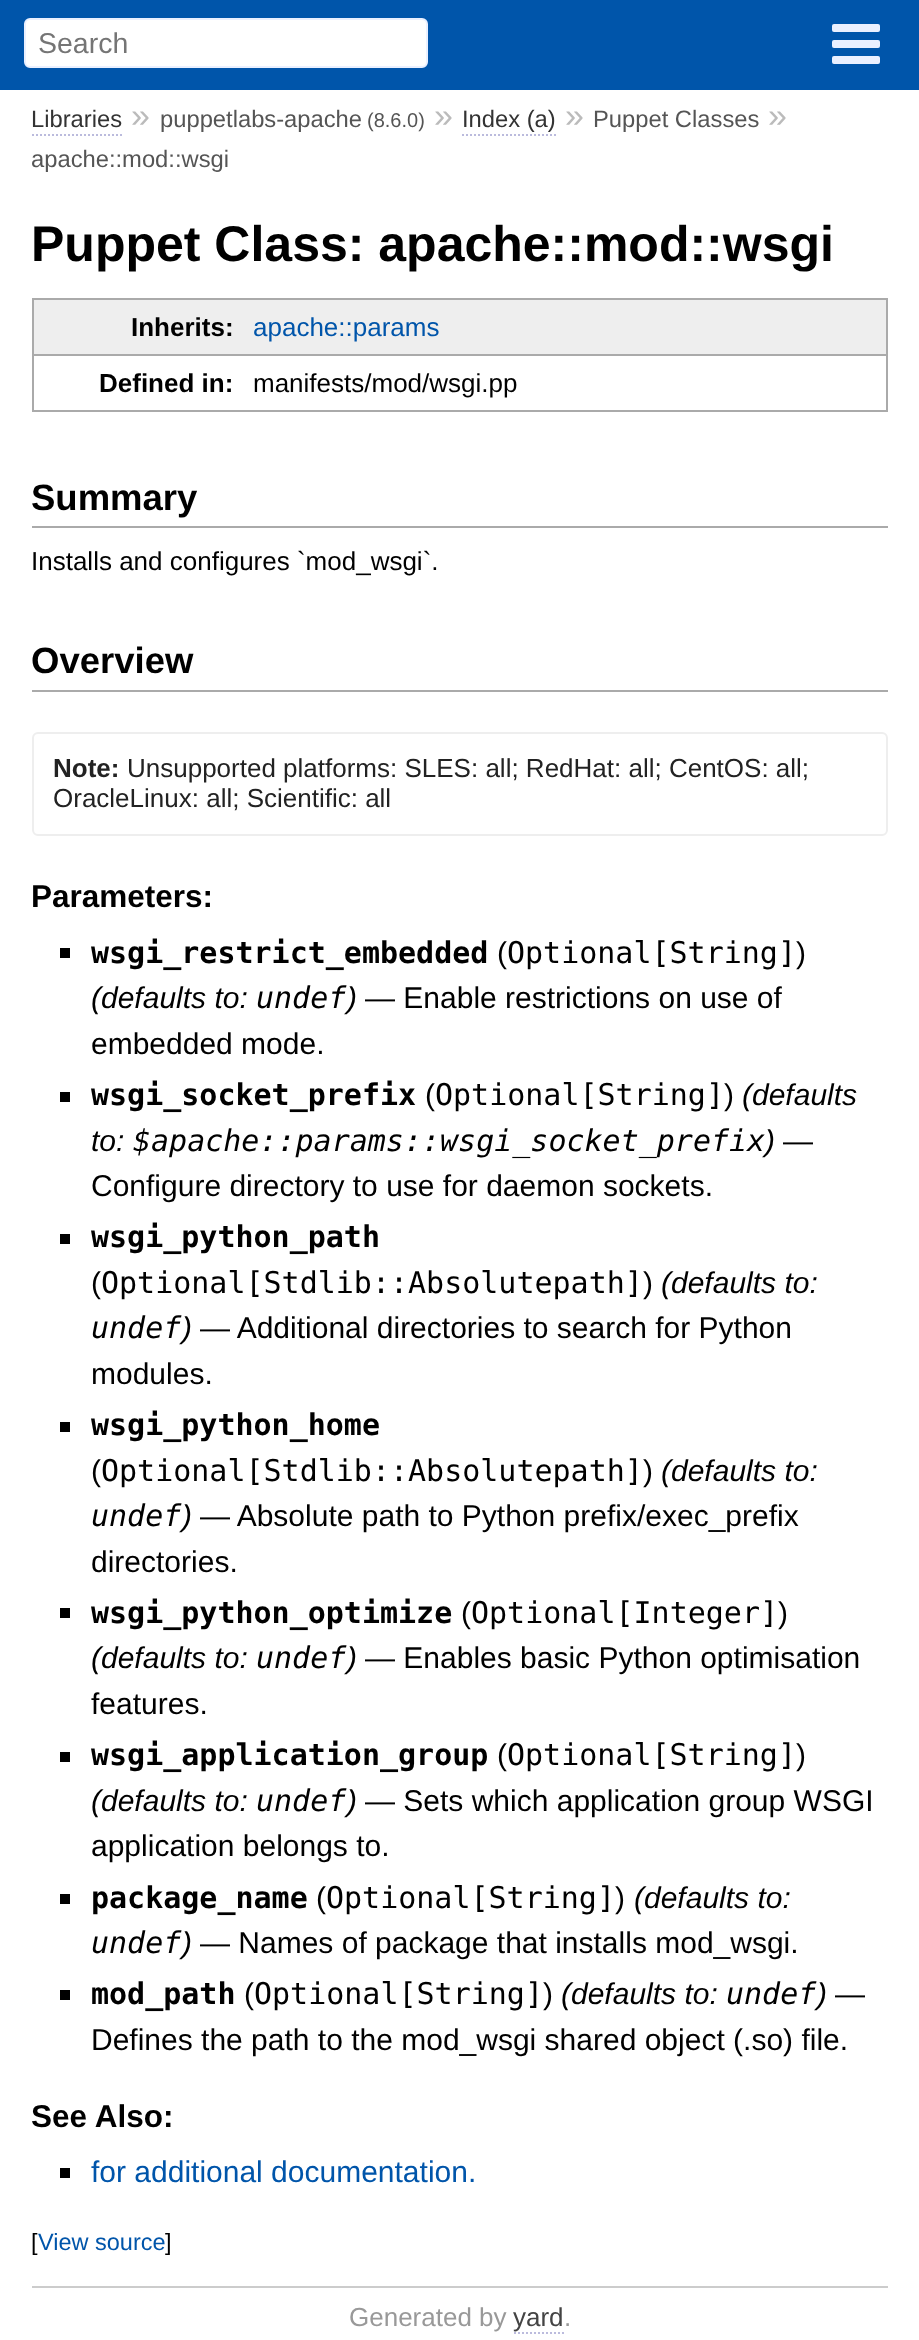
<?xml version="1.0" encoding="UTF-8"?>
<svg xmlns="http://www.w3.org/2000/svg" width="919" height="2340">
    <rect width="100%" height="100%" fill="#FFFFFF"/>
    <rect x="0" y="0" width="919" height="90" fill="#0055AA"/>
    <rect x="25" y="19" width="402" height="48" rx="5" fill="#FFFFFF" stroke="#EAF0FF" stroke-width="2"/>
    <text x="38" y="53" font-family="Liberation Sans" font-size="28.5" fill="#757575">Search</text>
    <rect x="832" y="24" width="48" height="8" rx="2" fill="#EAF0FF"/>
    <rect x="832" y="40" width="48" height="8" rx="2" fill="#EAF0FF"/>
    <rect x="832" y="56" width="48" height="8" rx="2" fill="#EAF0FF"/>
    <text x="31" y="127" font-family="Liberation Sans" font-size="23.75" fill="#333333">Libraries</text>
    <path d="M 32 135 H 122" fill="none" stroke="#BBBBDD" stroke-width="2" stroke-dasharray="2 2"/>
    <text x="131" y="127" font-family="Liberation Sans" font-size="34" fill="#BBBBBB">»</text>
    <text x="160" y="127" font-family="Liberation Sans" font-size="23.75" fill="#555555">puppetlabs-apache</text>
    <text x="367" y="127" font-family="Liberation Sans" font-size="20" fill="#555555">(8.6.0)</text>
    <text x="434" y="127" font-family="Liberation Sans" font-size="34" fill="#BBBBBB">»</text>
    <text x="462" y="127" font-family="Liberation Sans" font-size="23.75" fill="#333333">Index (a)</text>
    <path d="M 462 135 H 556" fill="none" stroke="#BBBBDD" stroke-width="2" stroke-dasharray="2 2"/>
    <text x="565" y="127" font-family="Liberation Sans" font-size="34" fill="#BBBBBB">»</text>
    <text x="593" y="127" font-family="Liberation Sans" font-size="23.75" fill="#555555">Puppet Classes</text>
    <text x="768" y="127" font-family="Liberation Sans" font-size="34" fill="#BBBBBB">»</text>
    <text x="31" y="167" font-family="Liberation Sans" font-size="23.75" fill="#555555">apache::mod::wsgi</text>
    <text x="31" y="261" font-family="Liberation Sans" font-size="50" font-weight="700" fill="#000000">Puppet Class: apache::mod::wsgi</text>
    <rect x="34" y="300" width="852" height="54" fill="#EEEEEE"/>
    <rect x="32" y="298" width="856" height="2" fill="#AAAAAA"/>
    <rect x="32" y="298" width="2" height="56" fill="#AAAAAA"/>
    <text x="131" y="336" font-family="Liberation Sans" font-size="26" font-weight="700" fill="#000000">Inherits:</text>
    <rect x="32" y="354" width="856" height="2" fill="#AAAAAA"/>
    <rect x="886" y="298" width="2" height="114" fill="#AAAAAA"/>
    <text x="253" y="336" font-family="Liberation Sans" font-size="26" fill="#0055AA">apache::params</text>
    <rect x="32" y="410" width="222" height="2" fill="#AAAAAA"/>
    <rect x="32" y="354" width="2" height="58" fill="#AAAAAA"/>
    <text x="99" y="392" font-family="Liberation Sans" font-size="26" font-weight="700" fill="#000000">Defined in:</text>
    <rect x="254" y="410" width="634" height="2" fill="#AAAAAA"/>
    <text x="253" y="392" font-family="Liberation Sans" font-size="26" fill="#000000">manifests/mod/wsgi.pp</text>
    <rect x="32" y="526" width="856" height="2" fill="#AAAAAA"/>
    <text x="31" y="510" font-family="Liberation Sans" font-size="36.5" font-weight="700" fill="#000000">Summary</text>
    <text x="31" y="570" font-family="Liberation Sans" font-size="26" fill="#000000">Installs and configures `mod_wsgi`.</text>
    <rect x="32" y="690" width="856" height="2" fill="#AAAAAA"/>
    <text x="31" y="673" font-family="Liberation Sans" font-size="36.5" font-weight="700" fill="#000000">Overview</text>
    <rect x="33" y="733" width="854" height="102" rx="5" fill="none" stroke="#EEEEEE" stroke-width="2"/>
    <text x="53" y="777" font-family="Liberation Sans" font-size="26" font-weight="700" fill="#222222">Note:</text>
    <text x="127" y="777" font-family="Liberation Sans" font-size="26" fill="#222222">Unsupported platforms: SLES: all; RedHat: all; CentOS: all;</text>
    <text x="53" y="807" font-family="Liberation Sans" font-size="26" fill="#222222">OracleLinux: all; Scientific: all</text>
    <text x="31" y="907" font-family="Liberation Sans" font-size="31.5" font-weight="700" fill="#000000">Parameters:</text>
    <rect x="60" y="948" width="10" height="10" fill="#000000"/>
    <text x="91" y="963" font-family="DejaVu Sans Mono" font-size="30" font-weight="700" fill="#000000">wsgi_restrict_embedded</text>
    <text x="497" y="963" font-family="Liberation Sans" font-size="30" fill="#000000">(</text>
    <text x="507" y="963" font-family="DejaVu Sans Mono" font-size="30" fill="#000000">Optional[String]</text>
    <text x="796" y="963" font-family="Liberation Sans" font-size="30" fill="#000000">)</text>
    <text x="91" y="1008" font-family="Liberation Sans" font-size="30" font-style="italic" fill="#000000">(defaults to:</text>
    <text x="256" y="1008" font-family="DejaVu Sans Mono" font-size="30" font-style="italic" fill="#000000">undef</text>
    <text x="347" y="1008" font-family="Liberation Sans" font-size="30" font-style="italic" fill="#000000">)</text>
    <text x="365" y="1008" font-family="Liberation Sans" font-size="30" fill="#000000">— Enable restrictions on use of</text>
    <text x="91" y="1054" font-family="Liberation Sans" font-size="30" fill="#000000">embedded mode.</text>
    <rect x="60" y="1092" width="10" height="10" fill="#000000"/>
    <text x="91" y="1105" font-family="DejaVu Sans Mono" font-size="30" font-weight="700" fill="#000000">wsgi_socket_prefix</text>
    <text x="425" y="1105" font-family="Liberation Sans" font-size="30" fill="#000000">(</text>
    <text x="435" y="1105" font-family="DejaVu Sans Mono" font-size="30" fill="#000000">Optional[String]</text>
    <text x="724" y="1105" font-family="Liberation Sans" font-size="30" fill="#000000">)</text>
    <text x="742" y="1105" font-family="Liberation Sans" font-size="30" font-style="italic" fill="#000000">(defaults</text>
    <text x="91" y="1151" font-family="Liberation Sans" font-size="30" font-style="italic" fill="#000000">to:</text>
    <text x="133" y="1151" font-family="DejaVu Sans Mono" font-size="30" font-style="italic" fill="#000000">$apache::params::wsgi_socket_prefix</text>
    <text x="765" y="1151" font-family="Liberation Sans" font-size="30" font-style="italic" fill="#000000">)</text>
    <text x="783" y="1151" font-family="Liberation Sans" font-size="30" fill="#000000">—</text>
    <text x="91" y="1196" font-family="Liberation Sans" font-size="30" fill="#000000">Configure directory to use for daemon sockets.</text>
    <rect x="60" y="1234" width="10" height="10" fill="#000000"/>
    <text x="91" y="1247" font-family="DejaVu Sans Mono" font-size="30" font-weight="700" fill="#000000">wsgi_python_path</text>
    <text x="91" y="1293" font-family="Liberation Sans" font-size="30" fill="#000000">(</text>
    <text x="101" y="1293" font-family="DejaVu Sans Mono" font-size="30" fill="#000000">Optional[Stdlib::Absolutepath]</text>
    <text x="643" y="1293" font-family="Liberation Sans" font-size="30" fill="#000000">)</text>
    <text x="661" y="1293" font-family="Liberation Sans" font-size="30" font-style="italic" fill="#000000">(defaults to:</text>
    <text x="91" y="1338" font-family="DejaVu Sans Mono" font-size="30" font-style="italic" fill="#000000">undef</text>
    <text x="182" y="1338" font-family="Liberation Sans" font-size="30" font-style="italic" fill="#000000">)</text>
    <text x="200" y="1338" font-family="Liberation Sans" font-size="30" fill="#000000">— Additional directories to search for Python</text>
    <text x="91" y="1384" font-family="Liberation Sans" font-size="30" fill="#000000">modules.</text>
    <rect x="60" y="1422" width="10" height="10" fill="#000000"/>
    <text x="91" y="1435" font-family="DejaVu Sans Mono" font-size="30" font-weight="700" fill="#000000">wsgi_python_home</text>
    <text x="91" y="1481" font-family="Liberation Sans" font-size="30" fill="#000000">(</text>
    <text x="101" y="1481" font-family="DejaVu Sans Mono" font-size="30" fill="#000000">Optional[Stdlib::Absolutepath]</text>
    <text x="643" y="1481" font-family="Liberation Sans" font-size="30" fill="#000000">)</text>
    <text x="661" y="1481" font-family="Liberation Sans" font-size="30" font-style="italic" fill="#000000">(defaults to:</text>
    <text x="91" y="1526" font-family="DejaVu Sans Mono" font-size="30" font-style="italic" fill="#000000">undef</text>
    <text x="182" y="1526" font-family="Liberation Sans" font-size="30" font-style="italic" fill="#000000">)</text>
    <text x="200" y="1526" font-family="Liberation Sans" font-size="30" fill="#000000">— Absolute path to Python prefix/exec_prefix</text>
    <text x="91" y="1572" font-family="Liberation Sans" font-size="30" fill="#000000">directories.</text>
    <rect x="60" y="1608" width="10" height="10" fill="#000000"/>
    <text x="91" y="1623" font-family="DejaVu Sans Mono" font-size="30" font-weight="700" fill="#000000">wsgi_python_optimize</text>
    <text x="461" y="1623" font-family="Liberation Sans" font-size="30" fill="#000000">(</text>
    <text x="471" y="1623" font-family="DejaVu Sans Mono" font-size="30" fill="#000000">Optional[Integer]</text>
    <text x="778" y="1623" font-family="Liberation Sans" font-size="30" fill="#000000">)</text>
    <text x="91" y="1668" font-family="Liberation Sans" font-size="30" font-style="italic" fill="#000000">(defaults to:</text>
    <text x="256" y="1668" font-family="DejaVu Sans Mono" font-size="30" font-style="italic" fill="#000000">undef</text>
    <text x="347" y="1668" font-family="Liberation Sans" font-size="30" font-style="italic" fill="#000000">)</text>
    <text x="365" y="1668" font-family="Liberation Sans" font-size="30" fill="#000000">— Enables basic Python optimisation</text>
    <text x="91" y="1714" font-family="Liberation Sans" font-size="30" fill="#000000">features.</text>
    <rect x="60" y="1752" width="10" height="10" fill="#000000"/>
    <text x="91" y="1765" font-family="DejaVu Sans Mono" font-size="30" font-weight="700" fill="#000000">wsgi_application_group</text>
    <text x="497" y="1765" font-family="Liberation Sans" font-size="30" fill="#000000">(</text>
    <text x="507" y="1765" font-family="DejaVu Sans Mono" font-size="30" fill="#000000">Optional[String]</text>
    <text x="796" y="1765" font-family="Liberation Sans" font-size="30" fill="#000000">)</text>
    <text x="91" y="1811" font-family="Liberation Sans" font-size="30" font-style="italic" fill="#000000">(defaults to:</text>
    <text x="256" y="1811" font-family="DejaVu Sans Mono" font-size="30" font-style="italic" fill="#000000">undef</text>
    <text x="347" y="1811" font-family="Liberation Sans" font-size="30" font-style="italic" fill="#000000">)</text>
    <text x="365" y="1811" font-family="Liberation Sans" font-size="30" fill="#000000">— Sets which application group WSGI</text>
    <text x="91" y="1856" font-family="Liberation Sans" font-size="30" fill="#000000">application belongs to.</text>
    <rect x="60" y="1894" width="10" height="10" fill="#000000"/>
    <text x="91" y="1908" font-family="DejaVu Sans Mono" font-size="30" font-weight="700" fill="#000000">package_name</text>
    <text x="316" y="1908" font-family="Liberation Sans" font-size="30" fill="#000000">(</text>
    <text x="326" y="1908" font-family="DejaVu Sans Mono" font-size="30" fill="#000000">Optional[String]</text>
    <text x="615" y="1908" font-family="Liberation Sans" font-size="30" fill="#000000">)</text>
    <text x="634" y="1908" font-family="Liberation Sans" font-size="30" font-style="italic" fill="#000000">(defaults to:</text>
    <text x="91" y="1953" font-family="DejaVu Sans Mono" font-size="30" font-style="italic" fill="#000000">undef</text>
    <text x="182" y="1953" font-family="Liberation Sans" font-size="30" font-style="italic" fill="#000000">)</text>
    <text x="200" y="1953" font-family="Liberation Sans" font-size="30" fill="#000000">— Names of package that installs mod_wsgi.</text>
    <rect x="60" y="1990" width="10" height="10" fill="#000000"/>
    <text x="91" y="2004" font-family="DejaVu Sans Mono" font-size="30" font-weight="700" fill="#000000">mod_path</text>
    <text x="244" y="2004" font-family="Liberation Sans" font-size="30" fill="#000000">(</text>
    <text x="254" y="2004" font-family="DejaVu Sans Mono" font-size="30" fill="#000000">Optional[String]</text>
    <text x="543" y="2004" font-family="Liberation Sans" font-size="30" fill="#000000">)</text>
    <text x="561" y="2004" font-family="Liberation Sans" font-size="30" font-style="italic" fill="#000000">(defaults to:</text>
    <text x="726" y="2004" font-family="DejaVu Sans Mono" font-size="30" font-style="italic" fill="#000000">undef</text>
    <text x="817" y="2004" font-family="Liberation Sans" font-size="30" font-style="italic" fill="#000000">)</text>
    <text x="835" y="2004" font-family="Liberation Sans" font-size="30" fill="#000000">—</text>
    <text x="91" y="2050" font-family="Liberation Sans" font-size="30" fill="#000000">Defines the path to the mod_wsgi shared object (.so) file.</text>
    <text x="31" y="2127" font-family="Liberation Sans" font-size="31.5" font-weight="700" fill="#000000">See Also:</text>
    <rect x="60" y="2168" width="10" height="10" fill="#000000"/>
    <text x="91" y="2182" font-family="Liberation Sans" font-size="30" fill="#0055AA">for additional documentation.</text>
    <text x="31" y="2250" font-family="Liberation Sans" font-size="23.5" fill="#000000">[</text>
    <text x="38" y="2250" font-family="Liberation Sans" font-size="23.5" fill="#0055AA">View source</text>
    <text x="165" y="2250" font-family="Liberation Sans" font-size="23.5" fill="#000000">]</text>
    <rect x="32" y="2286" width="856" height="2" fill="#CCCCCC"/>
    <text x="349" y="2326" font-family="Liberation Sans" font-size="26" fill="#999999">Generated by</text>
    <text x="513" y="2326" font-family="Liberation Sans" font-size="26" fill="#444444">yard</text>
    <path d="M 514 2333 H 564" fill="none" stroke="#BBBBDD" stroke-width="2" stroke-dasharray="2 2"/>
    <text x="564" y="2326" font-family="Liberation Sans" font-size="26" fill="#999999">.</text>
</svg>
